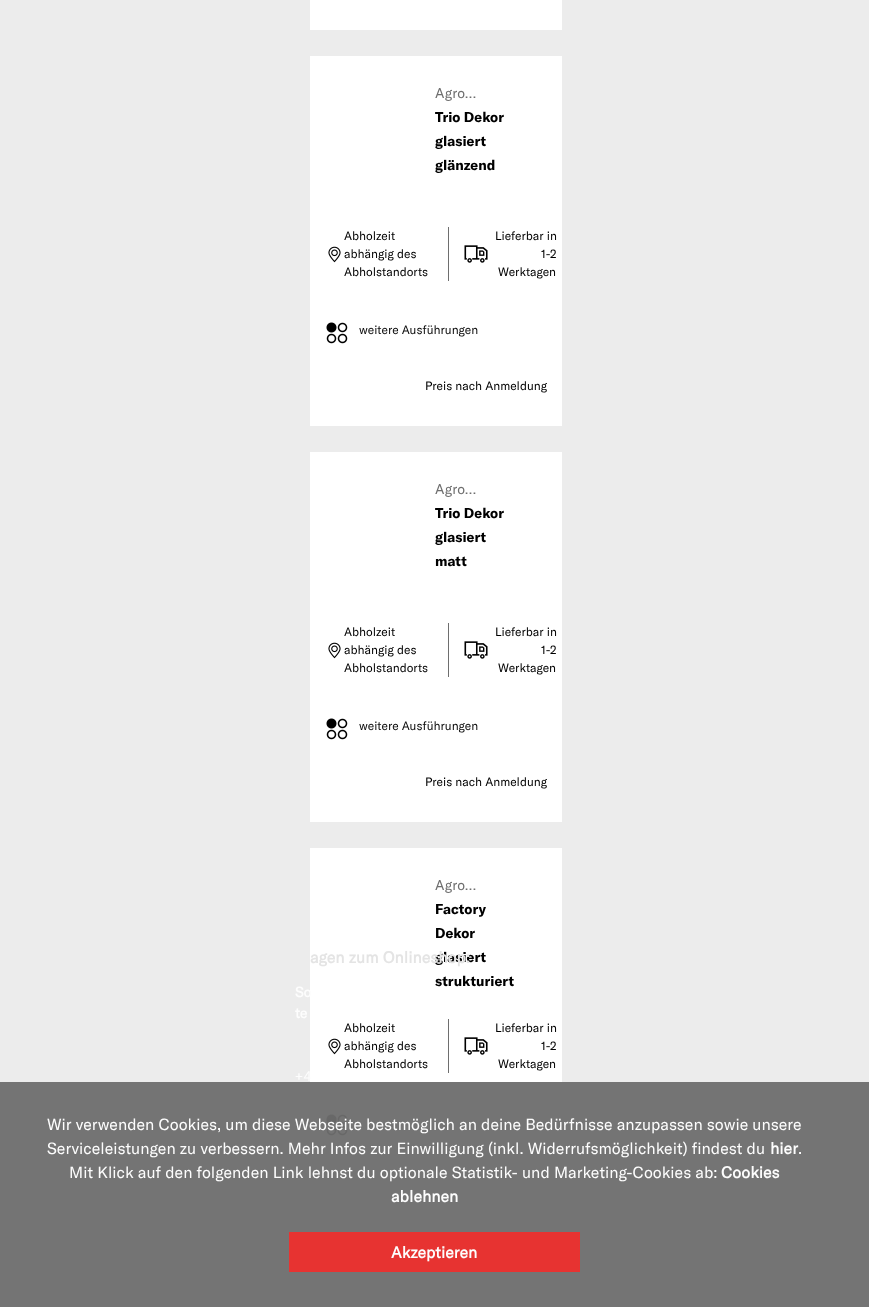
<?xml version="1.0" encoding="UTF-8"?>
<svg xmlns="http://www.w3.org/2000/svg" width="869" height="1307">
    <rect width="100%" height="100%" fill="#ECECEC"/>
    <rect x="0" y="1082" width="869" height="225" fill="#747474"/>
    <rect x="310" y="0" width="252" height="30" fill="#FFFFFF"/>
    <rect x="310" y="56" width="252" height="370" fill="#FFFFFF"/>
    <text x="435" y="98" font-family="GT America" font-size="14" fill="#6E6E6E">Agro…</text>
    <text font-family="GT America" font-size="14" font-weight="700" fill="#000000">
        <tspan x="435" y="122">Trio Dekor</tspan>
        <tspan x="435" y="146">glasiert</tspan>
        <tspan x="435" y="170">glänzend</tspan>
    </text>
    <rect x="448" y="227" width="1" height="54" fill="#6E6E6E"/>
    <image x="328" y="246" width="13" height="17" href="img_01.png"/>
    <text font-family="GT America" font-size="12" fill="#000000">
        <tspan x="344" y="240">Abholzeit</tspan>
        <tspan x="344" y="258">abhängig des</tspan>
        <tspan x="344" y="276">Abholstandorts</tspan>
    </text>
    <image x="464" y="245" width="24" height="18" href="img_02.png"/>
    <text x="495" y="240" font-family="GT America" font-size="12" fill="#000000">Lieferbar in</text>
    <text x="541" y="258" font-family="GT America" font-size="12" fill="#000000">1-2</text>
    <text x="498" y="276" font-family="GT America" font-size="12" fill="#000000">Werktagen</text>
    <image x="326" y="322" width="22" height="22" href="img_03.png"/>
    <text x="359" y="334" font-family="GT America" font-size="12" fill="#0A0A0A">weitere Ausführungen</text>
    <text x="425" y="390" font-family="GT America" font-size="12" fill="#000000">Preis nach Anmeldung</text>
    <rect x="310" y="452" width="252" height="370" fill="#FFFFFF"/>
    <text x="435" y="494" font-family="GT America" font-size="14" fill="#6E6E6E">Agro…</text>
    <text font-family="GT America" font-size="14" font-weight="700" fill="#000000">
        <tspan x="435" y="518">Trio Dekor</tspan>
        <tspan x="435" y="542">glasiert</tspan>
        <tspan x="435" y="566">matt</tspan>
    </text>
    <rect x="448" y="623" width="1" height="54" fill="#6E6E6E"/>
    <image x="328" y="642" width="13" height="17" href="img_01.png"/>
    <text font-family="GT America" font-size="12" fill="#000000">
        <tspan x="344" y="636">Abholzeit</tspan>
        <tspan x="344" y="654">abhängig des</tspan>
        <tspan x="344" y="672">Abholstandorts</tspan>
    </text>
    <image x="464" y="641" width="24" height="18" href="img_02.png"/>
    <text x="495" y="636" font-family="GT America" font-size="12" fill="#000000">Lieferbar in</text>
    <text x="541" y="654" font-family="GT America" font-size="12" fill="#000000">1-2</text>
    <text x="498" y="672" font-family="GT America" font-size="12" fill="#000000">Werktagen</text>
    <image x="326" y="718" width="22" height="22" href="img_03.png"/>
    <text x="359" y="730" font-family="GT America" font-size="12" fill="#0A0A0A">weitere Ausführungen</text>
    <text x="425" y="786" font-family="GT America" font-size="12" fill="#000000">Preis nach Anmeldung</text>
    <rect x="310" y="848" width="252" height="234" fill="#FFFFFF"/>
    <text x="435" y="890" font-family="GT America" font-size="14" fill="#6E6E6E">Agro…</text>
    <text font-family="GT America" font-size="14" font-weight="700" fill="#000000">
        <tspan x="435" y="914">Factory</tspan>
        <tspan x="435" y="938">Dekor</tspan>
        <tspan x="435" y="962">glasiert</tspan>
        <tspan x="435" y="986">strukturiert</tspan>
    </text>
    <rect x="448" y="1019" width="1" height="54" fill="#6E6E6E"/>
    <image x="328" y="1038" width="13" height="17" href="img_01.png"/>
    <text font-family="GT America" font-size="12" fill="#000000">
        <tspan x="344" y="1032">Abholzeit</tspan>
        <tspan x="344" y="1050">abhängig des</tspan>
        <tspan x="344" y="1068">Abholstandorts</tspan>
    </text>
    <image x="464" y="1037" width="24" height="18" href="img_02.png"/>
    <text x="495" y="1032" font-family="GT America" font-size="12" fill="#000000">Lieferbar in</text>
    <text x="541" y="1050" font-family="GT America" font-size="12" fill="#000000">1-2</text>
    <text x="498" y="1068" font-family="GT America" font-size="12" fill="#000000">Werktagen</text>
    <image x="326" y="1114" width="22" height="22" href="img_04.png"/>
    <text x="310" y="963" font-family="'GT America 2'" font-size="16" font-weight="700" fill="#E4E4E4">agen zum Onlineshop:</text>
    <text font-family="'GT America 2'" font-size="14" font-weight="700" fill="#FDFDFD">
        <tspan x="295" y="997">So</tspan>
        <tspan x="295" y="1018">te</tspan>
    </text>
    <text x="295" y="1081" font-family="GT America" font-size="14" fill="#FDFDFD">+4</text>
    <text font-family="GT America" font-size="16" fill="#FDFDFD">
        <tspan x="47" y="1130">Wir verwenden Cookies, um diese Webseite bestmöglich an deine Bedürfnisse anzupassen sowie unsere</tspan>
        <tspan x="47" y="1154">Serviceleistungen zu verbessern. Mehr Infos zur Einwilligung (inkl. Widerrufsmöglichkeit) findest du</tspan>
    </text>
    <text x="770" y="1154" font-family="'GT America 2'" font-size="16" font-weight="700" fill="#FDFDFD">hier</text>
    <text x="798" y="1154" font-family="GT America" font-size="16" fill="#FDFDFD">.</text>
    <text x="69" y="1178" font-family="GT America" font-size="16" fill="#FDFDFD">Mit Klick auf den folgenden Link lehnst du optionale Statistik- und Marketing-Cookies ab:</text>
    <text x="721" y="1178" font-family="'GT America 2'" font-size="16" font-weight="700" fill="#FDFDFD">Cookies</text>
    <text x="391" y="1202" font-family="'GT America 2'" font-size="16" font-weight="700" fill="#FDFDFD">ablehnen</text>
    <rect x="289" y="1232" width="291" height="40" fill="#E73331"/>
    <text x="391" y="1258" font-family="'GT America 2'" font-size="16" font-weight="700" fill="#FDFDFD">Akzeptieren</text>
</svg>
